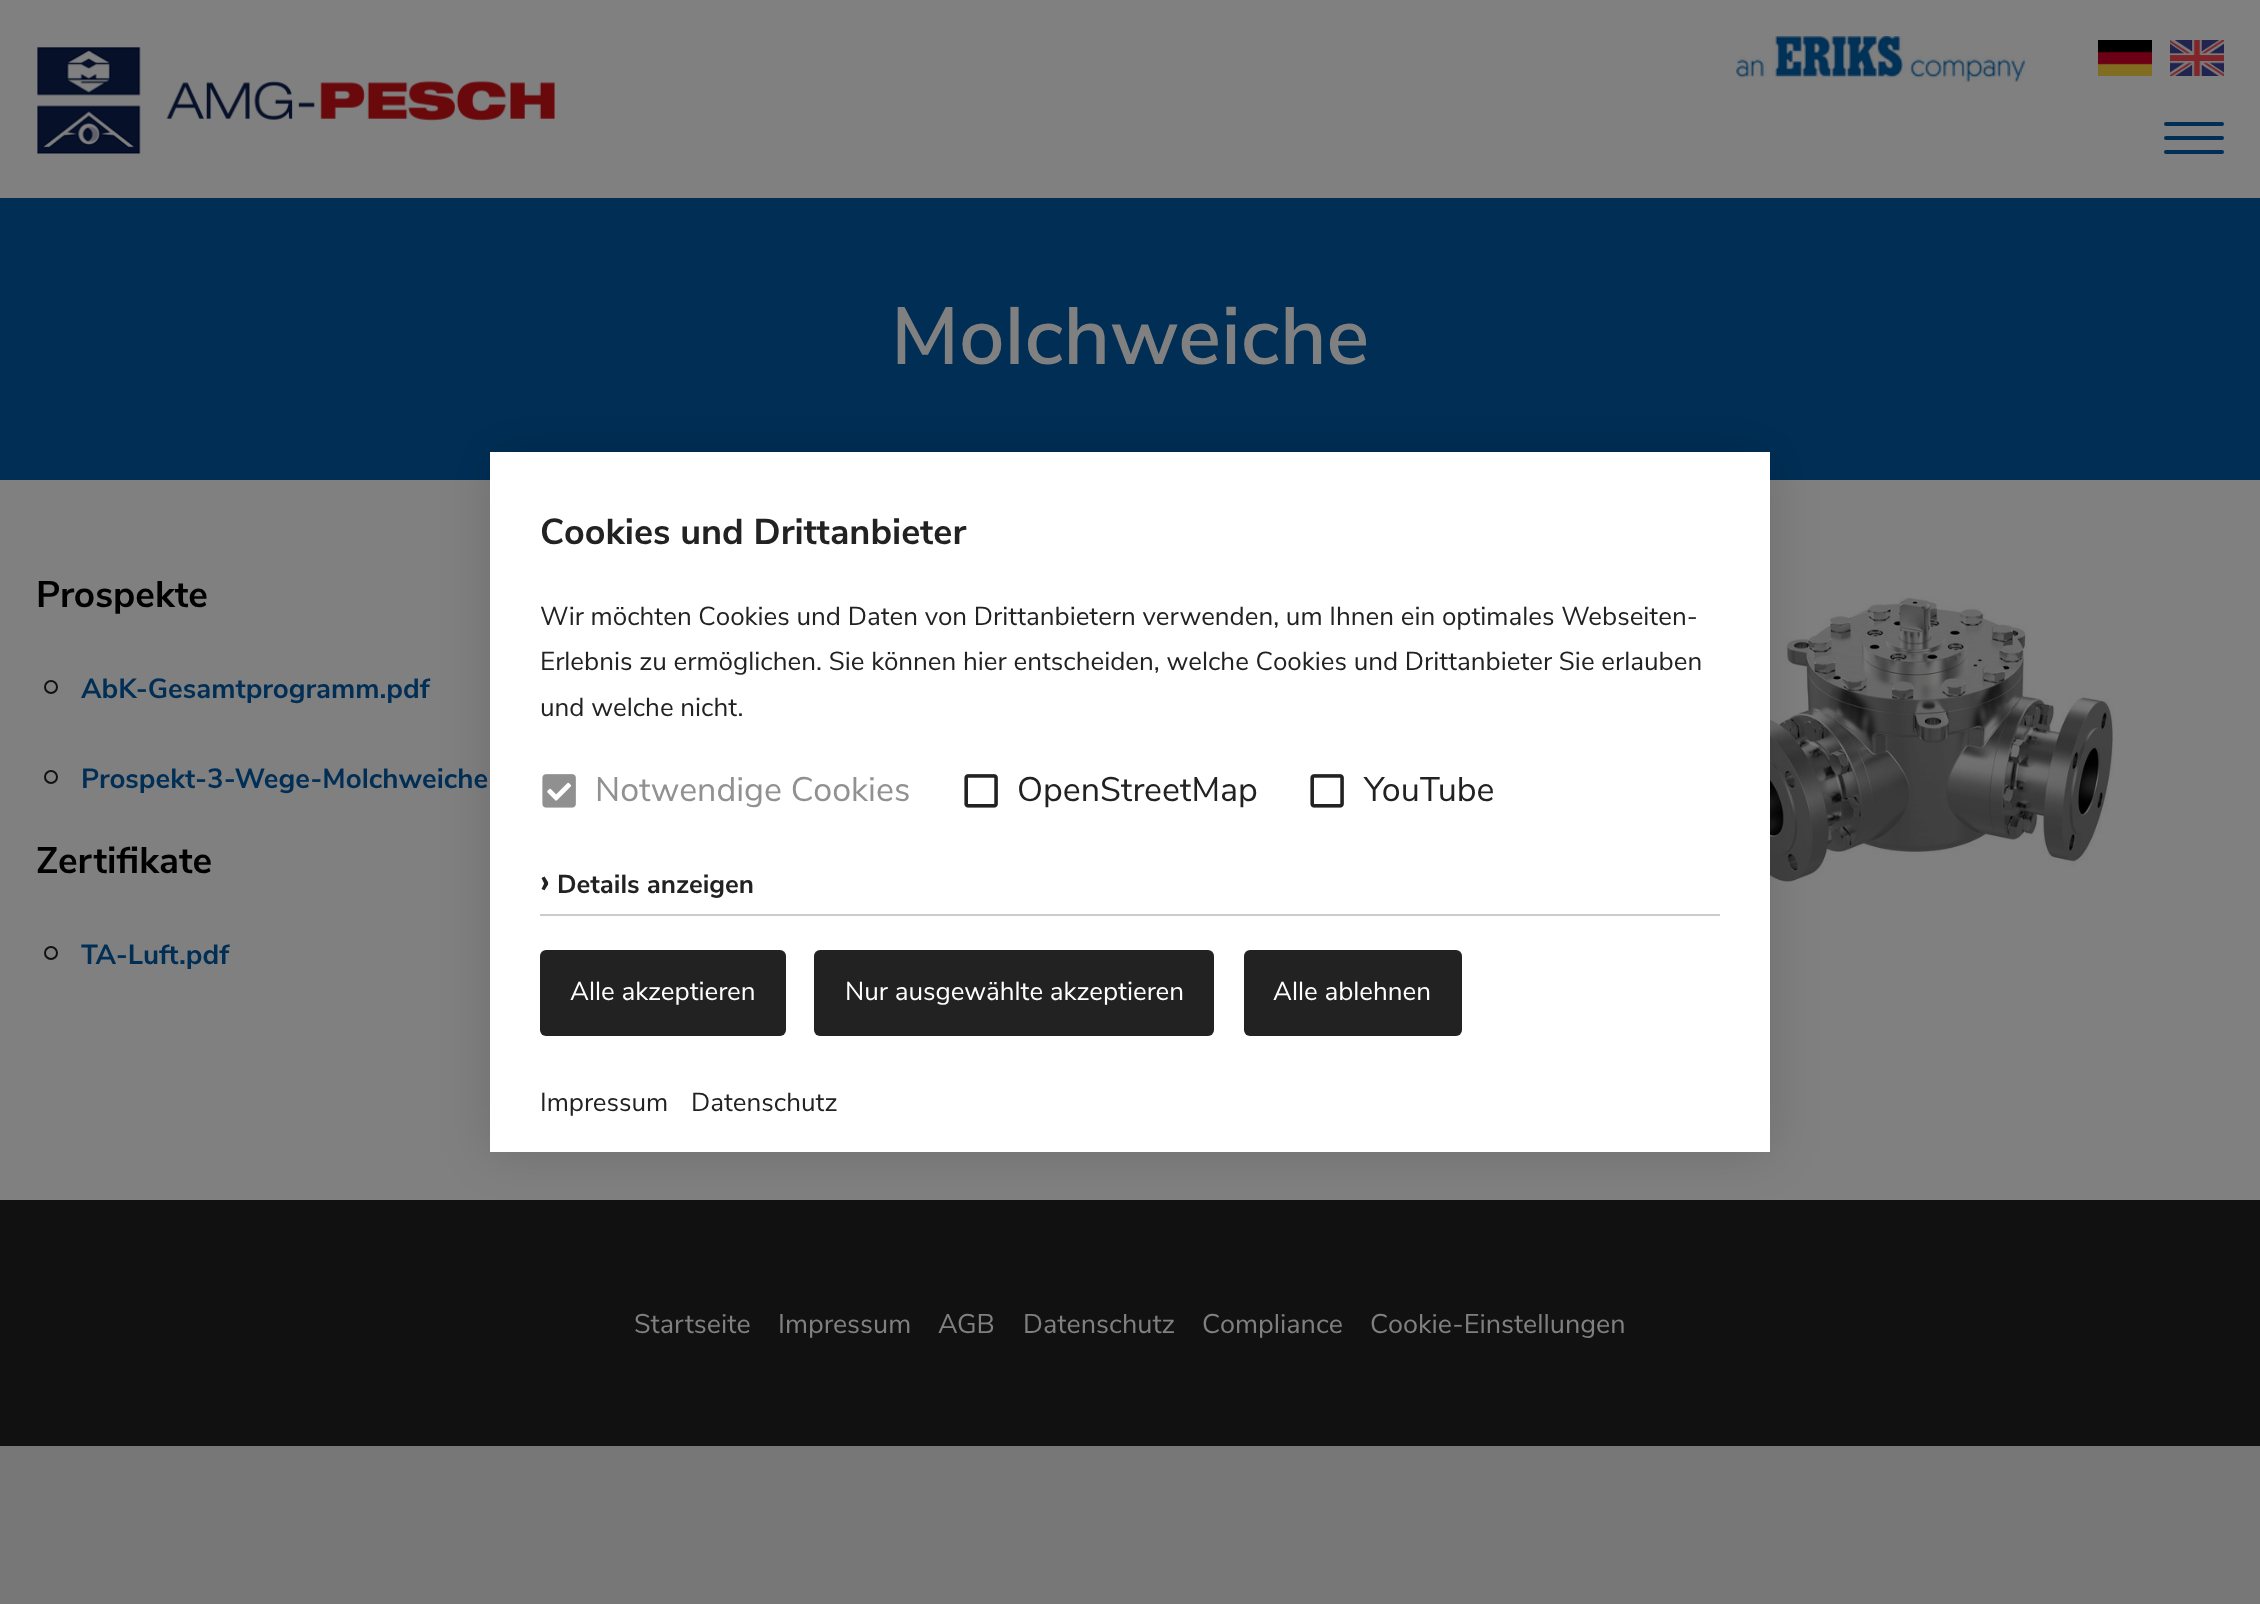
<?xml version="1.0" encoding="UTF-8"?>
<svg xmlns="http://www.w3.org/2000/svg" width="2260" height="1604">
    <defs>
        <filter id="blur1" x="-50%" y="-200%" width="200%" height="500%"><feGaussianBlur stdDeviation="25"/></filter>
    </defs>
    <rect width="100%" height="100%" fill="#777777"/>
    <rect x="0" y="0" width="2260" height="1200" fill="#808080"/>
    <image x="37" y="47" width="518" height="107" href="img_01.png"/>
    <image x="1736" y="36" width="290" height="46" href="img_02.png"/>
    <image x="2098" y="40" width="54" height="36" href="img_03.png"/>
    <image x="2170" y="40" width="54" height="36" href="img_04.png"/>
    <rect x="2164" y="136" width="60" height="4" rx="2" fill="#002E55"/>
    <rect x="2164" y="122" width="60" height="4" rx="2" fill="#002E55"/>
    <rect x="2164" y="150" width="60" height="4" rx="2" fill="#002E55"/>
    <rect x="0" y="198" width="2260" height="282" fill="#002E55"/>
    <text x="891" y="364" font-family="Nunito Sans" font-size="81" font-weight="600" fill="#808080">Molchweiche</text>
    <text x="36" y="607" font-family="Nunito Sans" font-size="37" font-weight="700" fill="#000000">Prospekte</text>
    <circle cx="51" cy="687" r="6" fill="none" stroke="#111111" stroke-width="2"/>
    <text x="81" y="698" font-family="Nunito Sans" font-size="27.75" font-weight="700" fill="#002E55">AbK-Gesamtprogramm.pdf</text>
    <circle cx="51" cy="777" r="6" fill="none" stroke="#111111" stroke-width="2"/>
    <text x="81" y="788" font-family="Nunito Sans" font-size="27.75" font-weight="700" fill="#002E55">Prospekt-3-Wege-Molchweiche</text>
    <text x="36" y="873" font-family="Nunito Sans" font-size="37" font-weight="700" fill="#000000">Zertifikate</text>
    <circle cx="51" cy="953" r="6" fill="none" stroke="#111111" stroke-width="2"/>
    <text x="81" y="964" font-family="Nunito Sans" font-size="27.75" font-weight="700" fill="#002E55">TA-Luft.pdf</text>
    <image x="1770" y="597" width="344" height="285" href="img_05.png"/>
    <rect x="0" y="1200" width="2260" height="246" fill="#111111"/>
    <text x="634" y="1333" font-family="Nunito Sans" font-size="27" fill="#808080">Startseite</text>
    <text x="778" y="1333" font-family="Nunito Sans" font-size="27" fill="#808080">Impressum</text>
    <text x="938" y="1333" font-family="Nunito Sans" font-size="27" fill="#808080">AGB</text>
    <text x="1023" y="1333" font-family="Nunito Sans" font-size="27" fill="#808080">Datenschutz</text>
    <text x="1202" y="1333" font-family="Nunito Sans" font-size="27" fill="#808080">Compliance</text>
    <text x="1370" y="1333" font-family="Nunito Sans" font-size="27" fill="#808080">Cookie-Einstellungen</text>
    <rect x="490" y="452" width="1280" height="700" fill="#000000" fill-opacity="0.15" filter="url(#blur1)"/>
    <rect x="490" y="452" width="1280" height="700" fill="#FFFFFF"/>
    <text x="540" y="544" font-family="Nunito Sans" font-size="36" font-weight="700" fill="#222222">Cookies und Drittanbieter</text>
    <text font-family="Nunito Sans" font-size="26" fill="#222222">
        <tspan x="540" y="625">Wir möchten Cookies und Daten von Drittanbietern verwenden, um Ihnen ein optimales Webseiten-</tspan>
        <tspan x="540" y="670">Erlebnis zu ermöglichen. Sie können hier entscheiden, welche Cookies und Drittanbieter Sie erlauben</tspan>
        <tspan x="540" y="716">und welche nicht.</tspan>
    </text>
    <image x="542" y="774" width="34" height="34" href="img_06.png"/>
    <text x="595" y="801" font-family="Nunito Sans" font-size="34" fill="#919191">Notwendige Cookies</text>
    <image x="964" y="774" width="34" height="34" href="img_07.png"/>
    <text x="1017" y="801" font-family="Nunito Sans" font-size="34" fill="#222222">OpenStreetMap</text>
    <image x="1310" y="774" width="34" height="34" href="img_07.png"/>
    <text x="1364" y="801" font-family="Nunito Sans" font-size="34" fill="#222222">YouTube</text>
    <text x="540" y="893" font-family="Nunito Sans" font-size="36" font-weight="700" fill="#222222">›</text>
    <text x="557" y="893" font-family="Nunito Sans" font-size="26" font-weight="700" fill="#222222">Details anzeigen</text>
    <rect x="540" y="914" width="1180" height="2" fill="#CCCCCC"/>
    <rect x="540" y="950" width="246" height="86" rx="6" fill="#222222"/>
    <text x="570" y="1000" font-family="Nunito Sans" font-size="26" fill="#FFFFFF">Alle akzeptieren</text>
    <rect x="814" y="950" width="400" height="86" rx="6" fill="#222222"/>
    <text x="845" y="1000" font-family="Nunito Sans" font-size="26" fill="#FFFFFF">Nur ausgewählte akzeptieren</text>
    <rect x="1244" y="950" width="218" height="86" rx="6" fill="#222222"/>
    <text x="1273" y="1000" font-family="Nunito Sans" font-size="26" fill="#FFFFFF">Alle ablehnen</text>
    <text x="540" y="1111" font-family="Nunito Sans" font-size="26" fill="#222222">Impressum</text>
    <text x="691" y="1111" font-family="Nunito Sans" font-size="26" fill="#222222">Datenschutz</text>
</svg>
